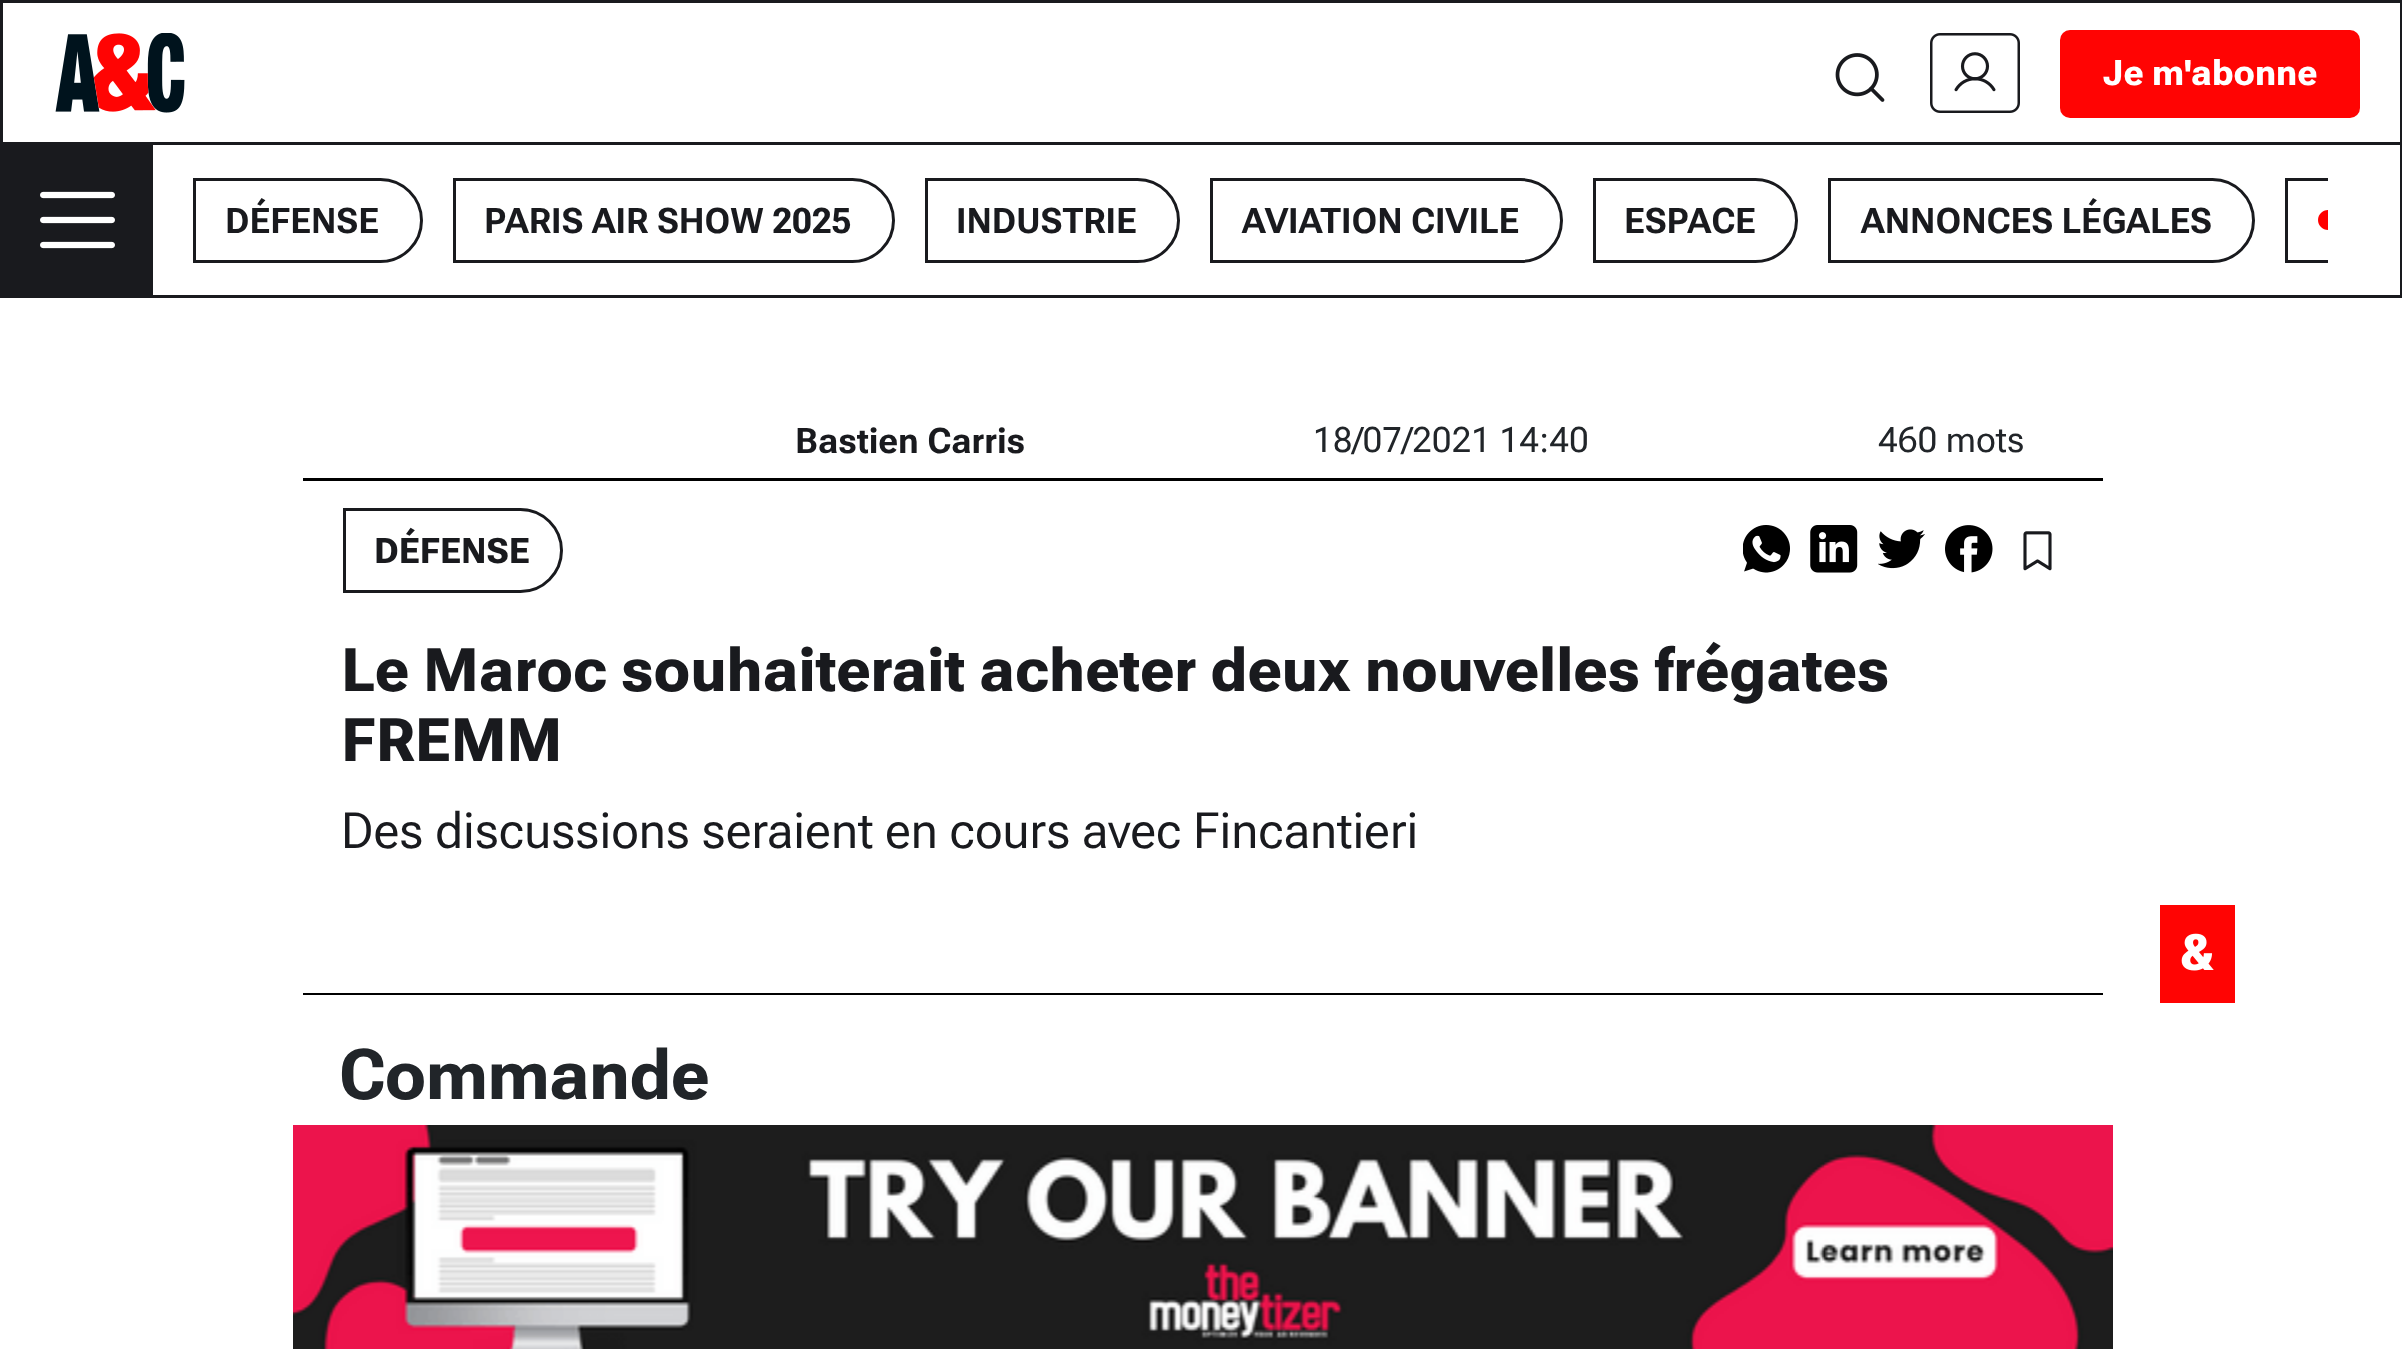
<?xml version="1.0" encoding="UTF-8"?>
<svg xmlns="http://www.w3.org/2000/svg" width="2402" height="1349">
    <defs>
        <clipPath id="clip1"><rect x="153" y="178" width="2175" height="85"/></clipPath>
    </defs>
    <rect width="100%" height="100%" fill="#FFFFFF"/>
    <rect x="1.5" y="1.5" width="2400" height="142" fill="none" stroke="#191A1E" stroke-width="3"/>
    <image x="55" y="33" width="130" height="80" href="img_01.png"/>
    <image x="1835" y="53" width="50" height="49" href="img_02.png"/>
    <image x="1930" y="33" width="90" height="80" href="img_03.png"/>
    <rect x="2060" y="30" width="300" height="88" rx="10" fill="#FF0403"/>
    <text x="2103" y="85" font-family="Roboto Flex" font-size="35" font-weight="800" fill="#FFFFFF">Je m'abonne</text>
    <rect x="2400" y="145" width="2" height="153" fill="#191A1E"/>
    <rect x="0" y="295" width="2402" height="3" fill="#191A1E"/>
    <rect x="0" y="145" width="3" height="153" fill="#191A1E"/>
    <rect x="3" y="145" width="150" height="150" fill="#191A1E"/>
    <image x="40" y="191" width="75" height="58" href="img_04.png"/>
    <path d="M 194.5 179.5 H 380.5 C 403 179.5 421.5 198 421.5 220.5 C 421.5 243 403 261.5 380.5 261.5 H 194.5 Z" fill="none" stroke="#191A1E" stroke-width="3"/>
    <text x="225" y="233" font-family="Roboto Flex" font-size="35" font-weight="700" fill="#191A1E">DÉFENSE</text>
    <path d="M 454.5 179.5 H 852.5 C 875 179.5 893.5 198 893.5 220.5 C 893.5 243 875 261.5 852.5 261.5 H 454.5 Z" fill="none" stroke="#191A1E" stroke-width="3"/>
    <text x="484" y="233" font-family="Roboto Flex" font-size="35" font-weight="700" fill="#191A1E">PARIS AIR SHOW 2025</text>
    <path d="M 926.5 179.5 H 1137.5 C 1160 179.5 1178.5 198 1178.5 220.5 C 1178.5 243 1160 261.5 1137.5 261.5 H 926.5 Z" fill="none" stroke="#191A1E" stroke-width="3"/>
    <text x="956" y="233" font-family="Roboto Flex" font-size="35" font-weight="700" fill="#191A1E">INDUSTRIE</text>
    <path d="M 1211.5 179.5 H 1520.5 C 1543 179.5 1561.5 198 1561.5 220.5 C 1561.5 243 1543 261.5 1520.5 261.5 H 1211.5 Z" fill="none" stroke="#191A1E" stroke-width="3"/>
    <text x="1242" y="233" font-family="Roboto Flex" font-size="35" font-weight="700" fill="#191A1E">AVIATION CIVILE</text>
    <path d="M 1594.5 179.5 H 1755.5 C 1778 179.5 1796.5 198 1796.5 220.5 C 1796.5 243 1778 261.5 1755.5 261.5 H 1594.5 Z" fill="none" stroke="#191A1E" stroke-width="3"/>
    <text x="1624" y="233" font-family="Roboto Flex" font-size="35" font-weight="700" fill="#191A1E">ESPACE</text>
    <path d="M 1829.5 179.5 H 2212.5 C 2235 179.5 2253.5 198 2253.5 220.5 C 2253.5 243 2235 261.5 2212.5 261.5 H 1829.5 Z" fill="none" stroke="#191A1E" stroke-width="3"/>
    <text x="1861" y="233" font-family="Roboto Flex" font-size="35" font-weight="700" fill="#191A1E">ANNONCES LÉGALES</text>
    <g clip-path="url(#clip1)">
        <path d="M 2286.5 179.5 H 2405.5 C 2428 179.5 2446.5 198 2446.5 220.5 C 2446.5 243 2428 261.5 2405.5 261.5 H 2286.5 Z" fill="none" stroke="#191A1E" stroke-width="3"/>
    </g>
    <path d="M 2328 210 V 230 C 2322.5 230 2318 225.5 2318 220 C 2318 214.5 2322.5 210 2328 210 Z" fill="#FF0000"/>
    <text x="795" y="453" font-family="Roboto Flex" font-size="35" font-weight="700" fill="#191A1E">Bastien Carris</text>
    <text x="1313" y="452" font-family="Roboto Flex" font-size="35" fill="#212529">18/07/2021 14:40</text>
    <text x="1878" y="452" font-family="Roboto Flex" font-size="35" fill="#212529">460 mots</text>
    <rect x="303" y="478" width="1800" height="3" fill="#000000"/>
    <path d="M 344.5 509.5 H 520.5 C 543 509.5 561.5 528 561.5 550.5 C 561.5 573 543 591.5 520.5 591.5 H 344.5 Z" fill="none" stroke="#191A1E" stroke-width="3"/>
    <text x="374" y="563" font-family="Roboto Flex" font-size="35" font-weight="800" fill="#191A1E">DÉFENSE</text>
    <image x="1743" y="525" width="47" height="48" href="img_05.png"/>
    <image x="1810" y="525" width="48" height="48" href="img_06.png"/>
    <image x="1878" y="529" width="47" height="40" href="img_07.png"/>
    <image x="1945" y="525" width="48" height="48" href="img_08.png"/>
    <image x="2023" y="531" width="29" height="40" href="img_09.png"/>
    <text font-family="Roboto Flex" font-size="60" font-weight="800" fill="#191A1E">
        <tspan x="341" y="691" word-spacing="-0.5">Le Maroc souhaiterait acheter deux nouvelles frégates</tspan>
        <tspan x="341" y="761">FREMM</tspan>
    </text>
    <text x="341" y="848" font-family="'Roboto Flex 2'" font-size="50" fill="#191A1E">Des discussions seraient en cours avec Fincantieri</text>
    <image x="2160" y="905" width="75" height="98" href="img_10.png"/>
    <rect x="303" y="993" width="1800" height="2" fill="#000000"/>
    <text x="339" y="1099" font-family="'Roboto Flex 2'" font-size="70" font-weight="700" fill="#212529">Commande</text>
    <image x="293" y="1125" width="1820" height="224" href="img_11.png"/>
</svg>
